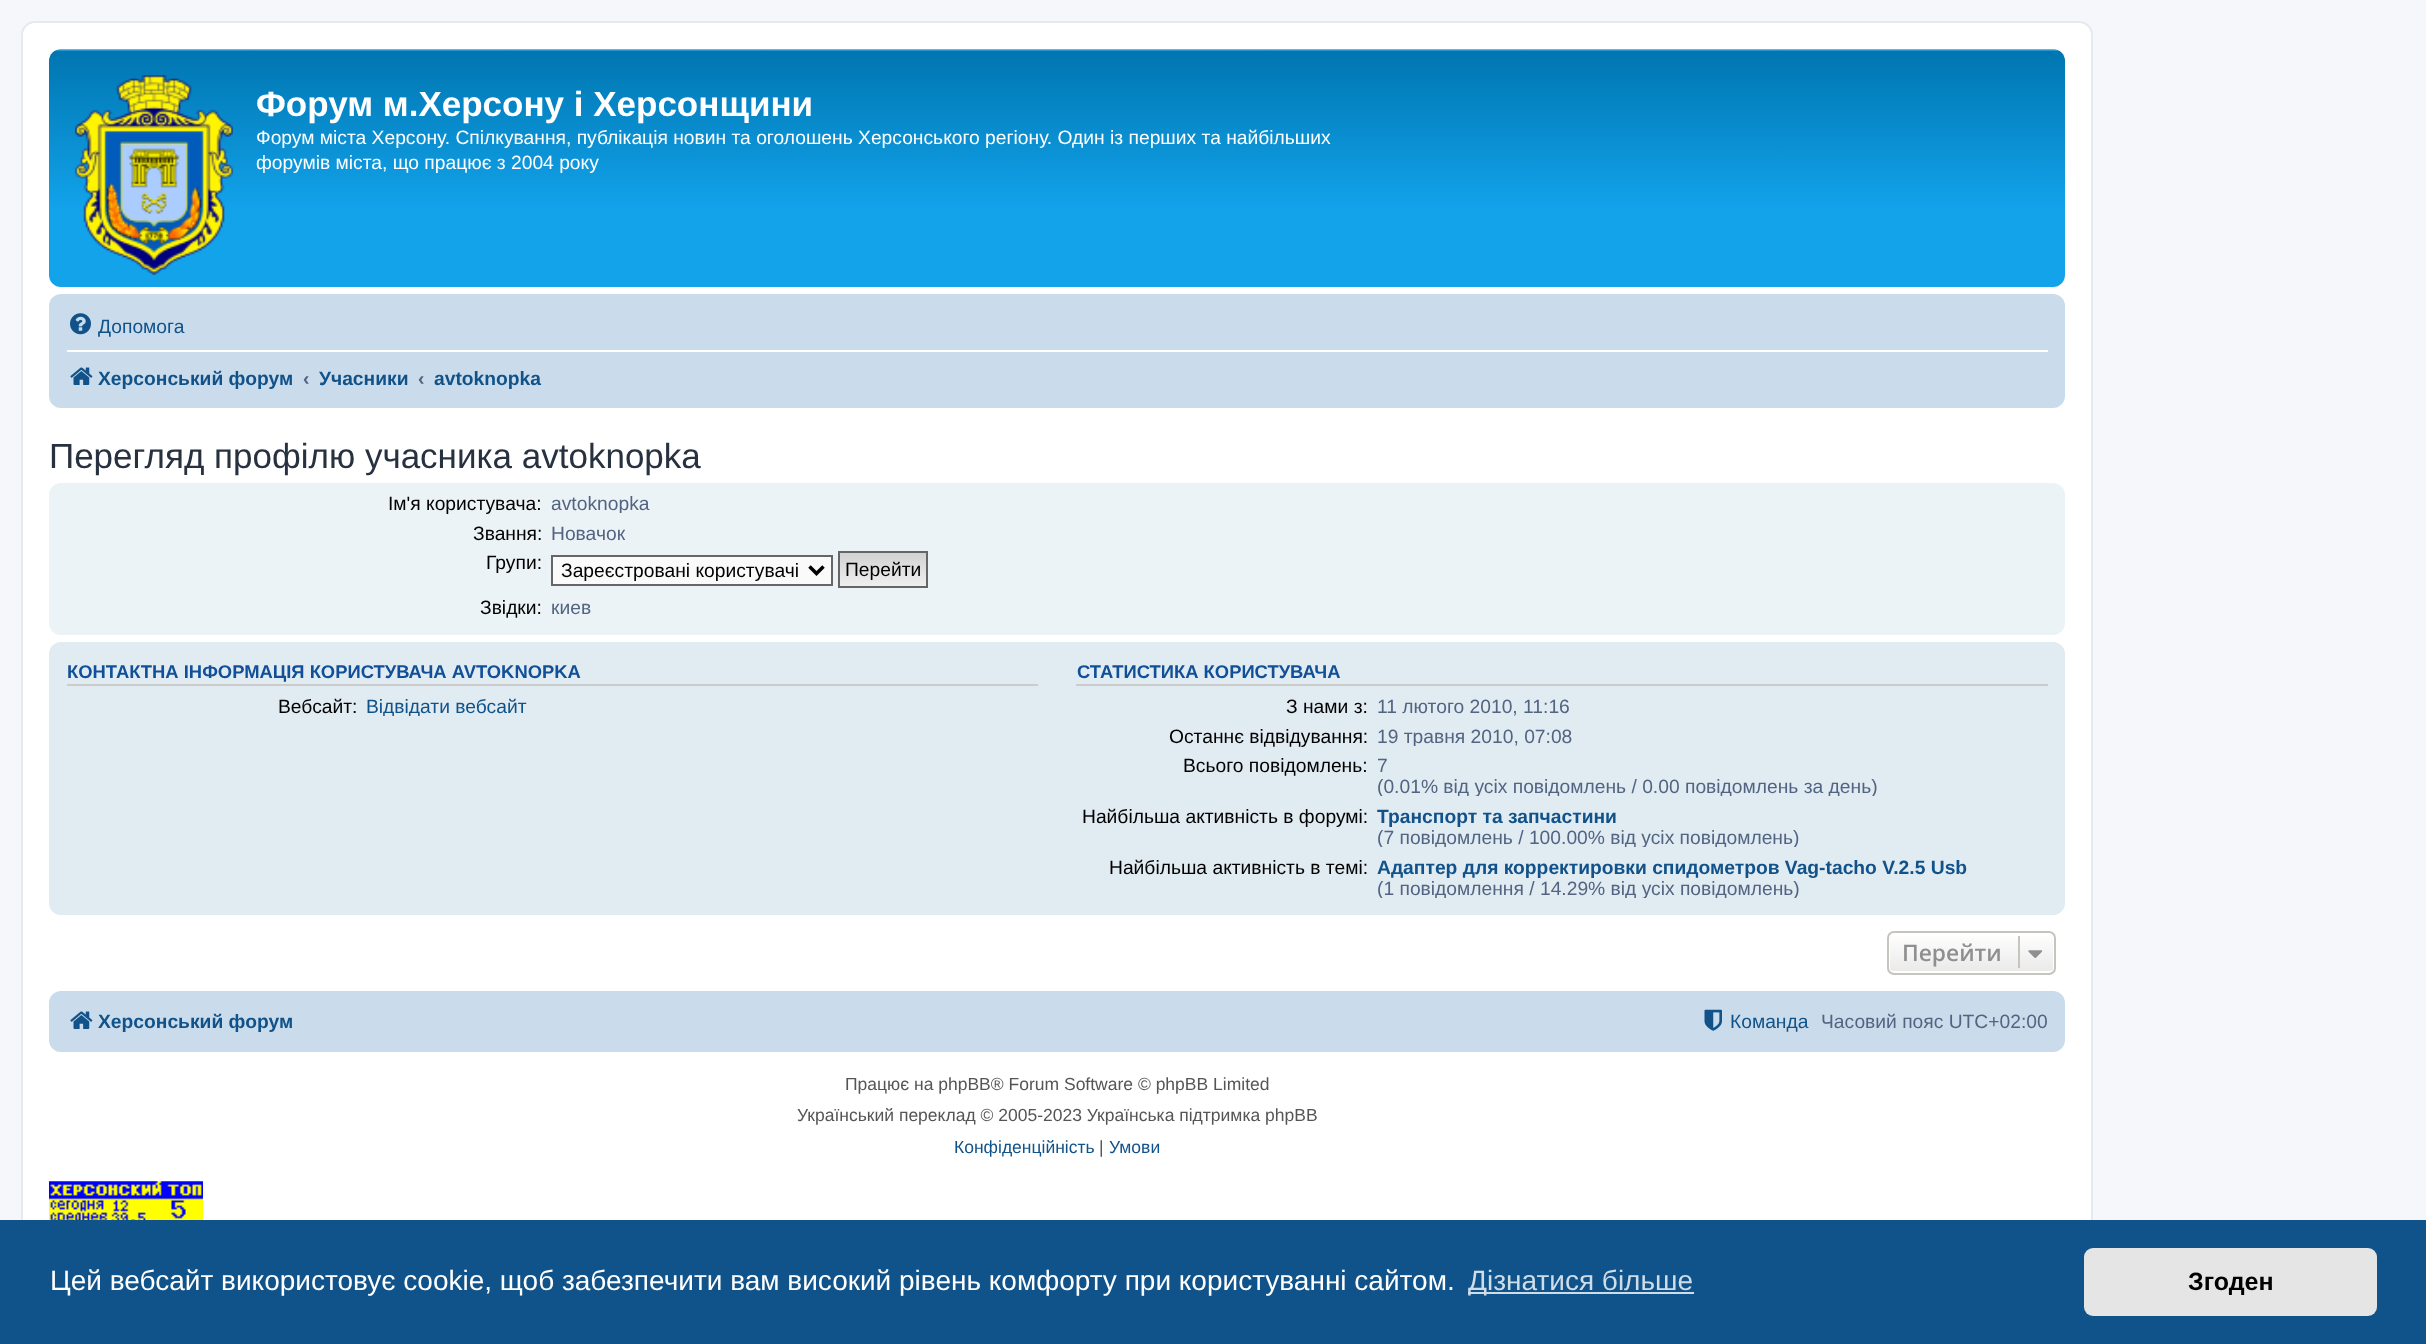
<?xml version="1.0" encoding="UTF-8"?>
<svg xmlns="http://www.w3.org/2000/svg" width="2426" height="1344">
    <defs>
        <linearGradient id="g1" gradientUnits="userSpaceOnUse" x1="1057" y1="49" x2="1057" y2="287"><stop offset="0" stop-color="#6ACEFF"/><stop offset="0.01" stop-color="#0076B1"/><stop offset="0.68" stop-color="#12A3EB"/><stop offset="1" stop-color="#12A3EB"/></linearGradient>
        <clipPath id="clip1"><rect x="543" y="492" width="1037" height="21"/></clipPath>
        <linearGradient id="g2" gradientUnits="userSpaceOnUse" x1="883" y1="553" x2="883" y2="586"><stop offset="0" stop-color="#D2D2D2"/><stop offset="1" stop-color="#EFEFEF"/></linearGradient>
        <clipPath id="clip2"><rect x="357" y="695" width="641" height="21"/></clipPath>
        <clipPath id="clip3"><rect x="1369" y="725" width="638" height="21"/></clipPath>
        <clipPath id="clip4"><rect x="1369" y="754" width="638" height="42"/></clipPath>
        <clipPath id="clip5"><rect x="1369" y="805" width="638" height="42"/></clipPath>
        <clipPath id="clip6"><rect x="1369" y="856" width="638" height="42"/></clipPath>
        <clipPath id="clip7"><rect x="1887" y="931" width="169" height="44" rx="7"/></clipPath>
        <linearGradient id="g3" gradientUnits="userSpaceOnUse" x1="1971" y1="933" x2="1971" y2="973"><stop offset="0" stop-color="#FFFFFF"/><stop offset="1" stop-color="#E9E9E9"/></linearGradient>
    </defs>
    <rect width="100%" height="100%" fill="#F5F7FA"/>
    <rect x="22" y="22" width="2070" height="1288" rx="13" fill="#FFFFFF" stroke="#E6E9ED" stroke-width="2"/>
    <rect x="49" y="49" width="2016" height="238" rx="12" fill="url(#g1)"/>
    <image x="75" y="75" width="158" height="200" href="img_01.png"/>
    <text x="256" y="116" font-family="Liberation Sans" font-size="35" font-weight="700" fill="#FFFFFF">Форум м.Херсону і Херсонщини</text>
    <text font-family="Liberation Sans" font-size="19.25" fill="#FFFFFF">
        <tspan x="256" y="144">Форум міста Херсону. Спілкування, публікація новин та оголошень Херсонського регіону. Один із перших та найбільших</tspan>
        <tspan x="256" y="169">форумів міста, що працює з 2004 року</tspan>
    </text>
    <rect x="49" y="294" width="2016" height="114" rx="12" fill="#CADCEB"/>
    <image x="70" y="313" width="21" height="22" href="img_02.png"/>
    <text x="98" y="333" font-family="Liberation Sans" font-size="19.25" fill="#105289">Допомога</text>
    <rect x="67" y="350" width="1981" height="2" fill="#FFFFFF"/>
    <image x="70" y="367" width="23" height="18" href="img_03.png"/>
    <text x="98" y="385" font-family="Liberation Sans" font-size="19.25" font-weight="700" fill="#105289">Херсонський форум</text>
    <text x="303" y="385" font-family="Liberation Sans" font-size="19.25" font-weight="700" fill="#536482">‹</text>
    <text x="319" y="385" font-family="Liberation Sans" font-size="19.25" font-weight="700" fill="#105289">Учасники</text>
    <text x="418" y="385" font-family="Liberation Sans" font-size="19.25" font-weight="700" fill="#536482">‹</text>
    <text x="434" y="385" font-family="Liberation Sans" font-size="19.25" font-weight="700" fill="#105289">avtoknopka</text>
    <text x="49" y="468" font-family="Liberation Sans" font-size="35" fill="#28313F">Перегляд профілю учасника avtoknopka</text>
    <rect x="49" y="483" width="2016" height="152" rx="12" fill="#ECF3F7"/>
    <text x="388" y="510" font-family="Liberation Sans" font-size="19.25" fill="#000000">Ім'я користувача:</text>
    <g clip-path="url(#clip1)">
        <text x="551" y="510" font-family="Liberation Sans" font-size="19.25" fill="#536482">avtoknopka</text>
    </g>
    <text x="473" y="540" font-family="Liberation Sans" font-size="19.25" fill="#000000">Звання:</text>
    <text x="551" y="540" font-family="Liberation Sans" font-size="19.25" fill="#536482">Новачок</text>
    <text x="486" y="569" font-family="Liberation Sans" font-size="19.25" fill="#000000">Групи:</text>
    <rect x="552" y="556" width="280" height="29" fill="#FAFAFA" stroke="#666666" stroke-width="2"/>
    <path d="M 809.5 566.5 L 816.5 573.5 L 823.5 566.5" fill="none" stroke="#000000" stroke-width="3.5"/>
    <text x="561" y="577" font-family="Liberation Sans" font-size="19.25" fill="#000000">Зареєстровані користувачі</text>
    <rect x="840" y="553" width="86" height="33" fill="url(#g2)"/>
    <rect x="839" y="552" width="88" height="35" fill="none" stroke="#666666" stroke-width="2"/>
    <text x="845" y="576" font-family="Liberation Sans" font-size="19.25" fill="#000000">Перейти</text>
    <text x="480" y="614" font-family="Liberation Sans" font-size="19.25" fill="#000000">Звідки:</text>
    <text x="551" y="614" font-family="Liberation Sans" font-size="19.25" fill="#536482">киев</text>
    <rect x="49" y="642" width="2016" height="273" rx="12" fill="#E1EBF2"/>
    <rect x="67" y="684" width="971" height="2" fill="#CCCCCC"/>
    <text x="67" y="678" font-family="Liberation Sans" font-size="18.4" font-weight="700" fill="#115098">КОНТАКТНА ІНФОРМАЦІЯ КОРИСТУВАЧА AVTOKNOPKA</text>
    <text x="278" y="713" font-family="Liberation Sans" font-size="19.25" fill="#000000">Вебсайт:</text>
    <g clip-path="url(#clip2)">
        <text x="366" y="713" font-family="Liberation Sans" font-size="19.25" fill="#105289">Відвідати вебсайт</text>
    </g>
    <rect x="1076" y="684" width="972" height="2" fill="#CCCCCC"/>
    <text x="1077" y="678" font-family="Liberation Sans" font-size="18.4" font-weight="700" fill="#115098">СТАТИСТИКА КОРИСТУВАЧА</text>
    <text x="1286" y="713" font-family="Liberation Sans" font-size="19.25" fill="#000000">З нами з:</text>
    <text x="1377" y="713" font-family="Liberation Sans" font-size="19.25" fill="#536482">11 лютого 2010, 11:16</text>
    <text x="1169" y="743" font-family="Liberation Sans" font-size="19.25" fill="#000000">Останнє відвідування:</text>
    <g clip-path="url(#clip3)">
        <text x="1377" y="743" font-family="Liberation Sans" font-size="19.25" fill="#536482">19 травня 2010, 07:08</text>
    </g>
    <text x="1183" y="772" font-family="Liberation Sans" font-size="19.25" fill="#000000">Всього повідомлень:</text>
    <text x="1377" y="772" font-family="Liberation Sans" font-size="19.25" fill="#536482">7</text>
    <g clip-path="url(#clip4)">
        <text x="1377" y="793" font-family="Liberation Sans" font-size="19.25" fill="#536482">(0.01% від усіх повідомлень / 0.00 повідомлень за день)</text>
    </g>
    <text x="1082" y="823" font-family="Liberation Sans" font-size="19.25" fill="#000000">Найбільша активність в форумі:</text>
    <text x="1377" y="823" font-family="Liberation Sans" font-size="19.25" font-weight="700" fill="#105289">Транспорт та запчастини</text>
    <g clip-path="url(#clip5)">
        <text x="1377" y="844" font-family="Liberation Sans" font-size="19.25" fill="#536482">(7 повідомлень / 100.00% від усіх повідомлень)</text>
    </g>
    <text x="1109" y="874" font-family="Liberation Sans" font-size="19.25" fill="#000000">Найбільша активність в темі:</text>
    <text x="1377" y="874" font-family="Liberation Sans" font-size="19.25" font-weight="700" fill="#105289">Адаптер для корректировки спидометров Vag-tacho V.2.5 Usb</text>
    <g clip-path="url(#clip6)">
        <text x="1377" y="895" font-family="Liberation Sans" font-size="19.25" fill="#536482">(1 повідомлення / 14.29% від усіх повідомлень)</text>
    </g>
    <g clip-path="url(#clip7)">
        <rect x="1887" y="933" width="169" height="40" fill="url(#g3)"/>
    </g>
    <rect x="1889" y="934" width="165" height="38" rx="4" fill="none" stroke="#FFFFFF" stroke-width="2"/>
    <rect x="1888" y="932" width="167" height="42" rx="6" fill="none" stroke="#C7C3BF" stroke-width="2"/>
    <text x="1902" y="961" font-family="Open Sans" font-size="22.75" font-weight="600" fill="#8F8F8F">Перейти</text>
    <rect x="2018" y="936" width="2" height="32" fill="#C7C3BF"/>
    <image x="2028" y="950" width="15" height="8" href="img_04.png"/>
    <rect x="49" y="991" width="2016" height="61" rx="12" fill="#CADCEB"/>
    <image x="70" y="1011" width="23" height="18" href="img_03.png"/>
    <text x="98" y="1028" font-family="Liberation Sans" font-size="19.25" font-weight="700" fill="#105289">Херсонський форум</text>
    <image x="1704" y="1009" width="18" height="22" href="img_05.png"/>
    <text x="1730" y="1028" font-family="Liberation Sans" font-size="19.25" fill="#105289">Команда</text>
    <text x="1821" y="1028" font-family="Liberation Sans" font-size="19.25" fill="#536482">Часовий пояс UTC+02:00</text>
    <text x="845" y="1090" font-family="Liberation Sans" font-size="17.5" fill="#555555">Працює на phpBB® Forum Software © phpBB Limited</text>
    <text x="797" y="1121" font-family="Liberation Sans" font-size="17.5" fill="#555555">Український переклад © 2005-2023 Українська підтримка phpBB</text>
    <text x="954" y="1153" font-family="Liberation Sans" font-size="17.5" fill="#105289">Конфіденційність</text>
    <text x="1099" y="1153" font-family="Liberation Sans" font-size="17.5" fill="#555555">|</text>
    <text x="1109" y="1153" font-family="Liberation Sans" font-size="17.5" fill="#105289">Умови</text>
    <image x="49" y="1181" width="154" height="39" href="img_06.png"/>
    <rect x="0" y="1220" width="2426" height="124" fill="#0F538A"/>
    <text x="50" y="1290" font-family="Liberation Sans" font-size="28" fill="#FFFFFF">Цей вебсайт використовує cookie, щоб забезпечити вам високий рівень комфорту при користуванні сайтом.</text>
    <rect x="1468" y="1292" width="226" height="2" fill="#CFDDE8"/>
    <text x="1468" y="1290" font-family="Liberation Sans" font-size="28" fill="#CFDDE8">Дізнатися більше</text>
    <rect x="2084" y="1248" width="293" height="68" rx="9" fill="#E5E5E5"/>
    <text x="2188" y="1290" font-family="Liberation Sans" font-size="25" font-weight="700" fill="#000000">Згоден</text>
</svg>
